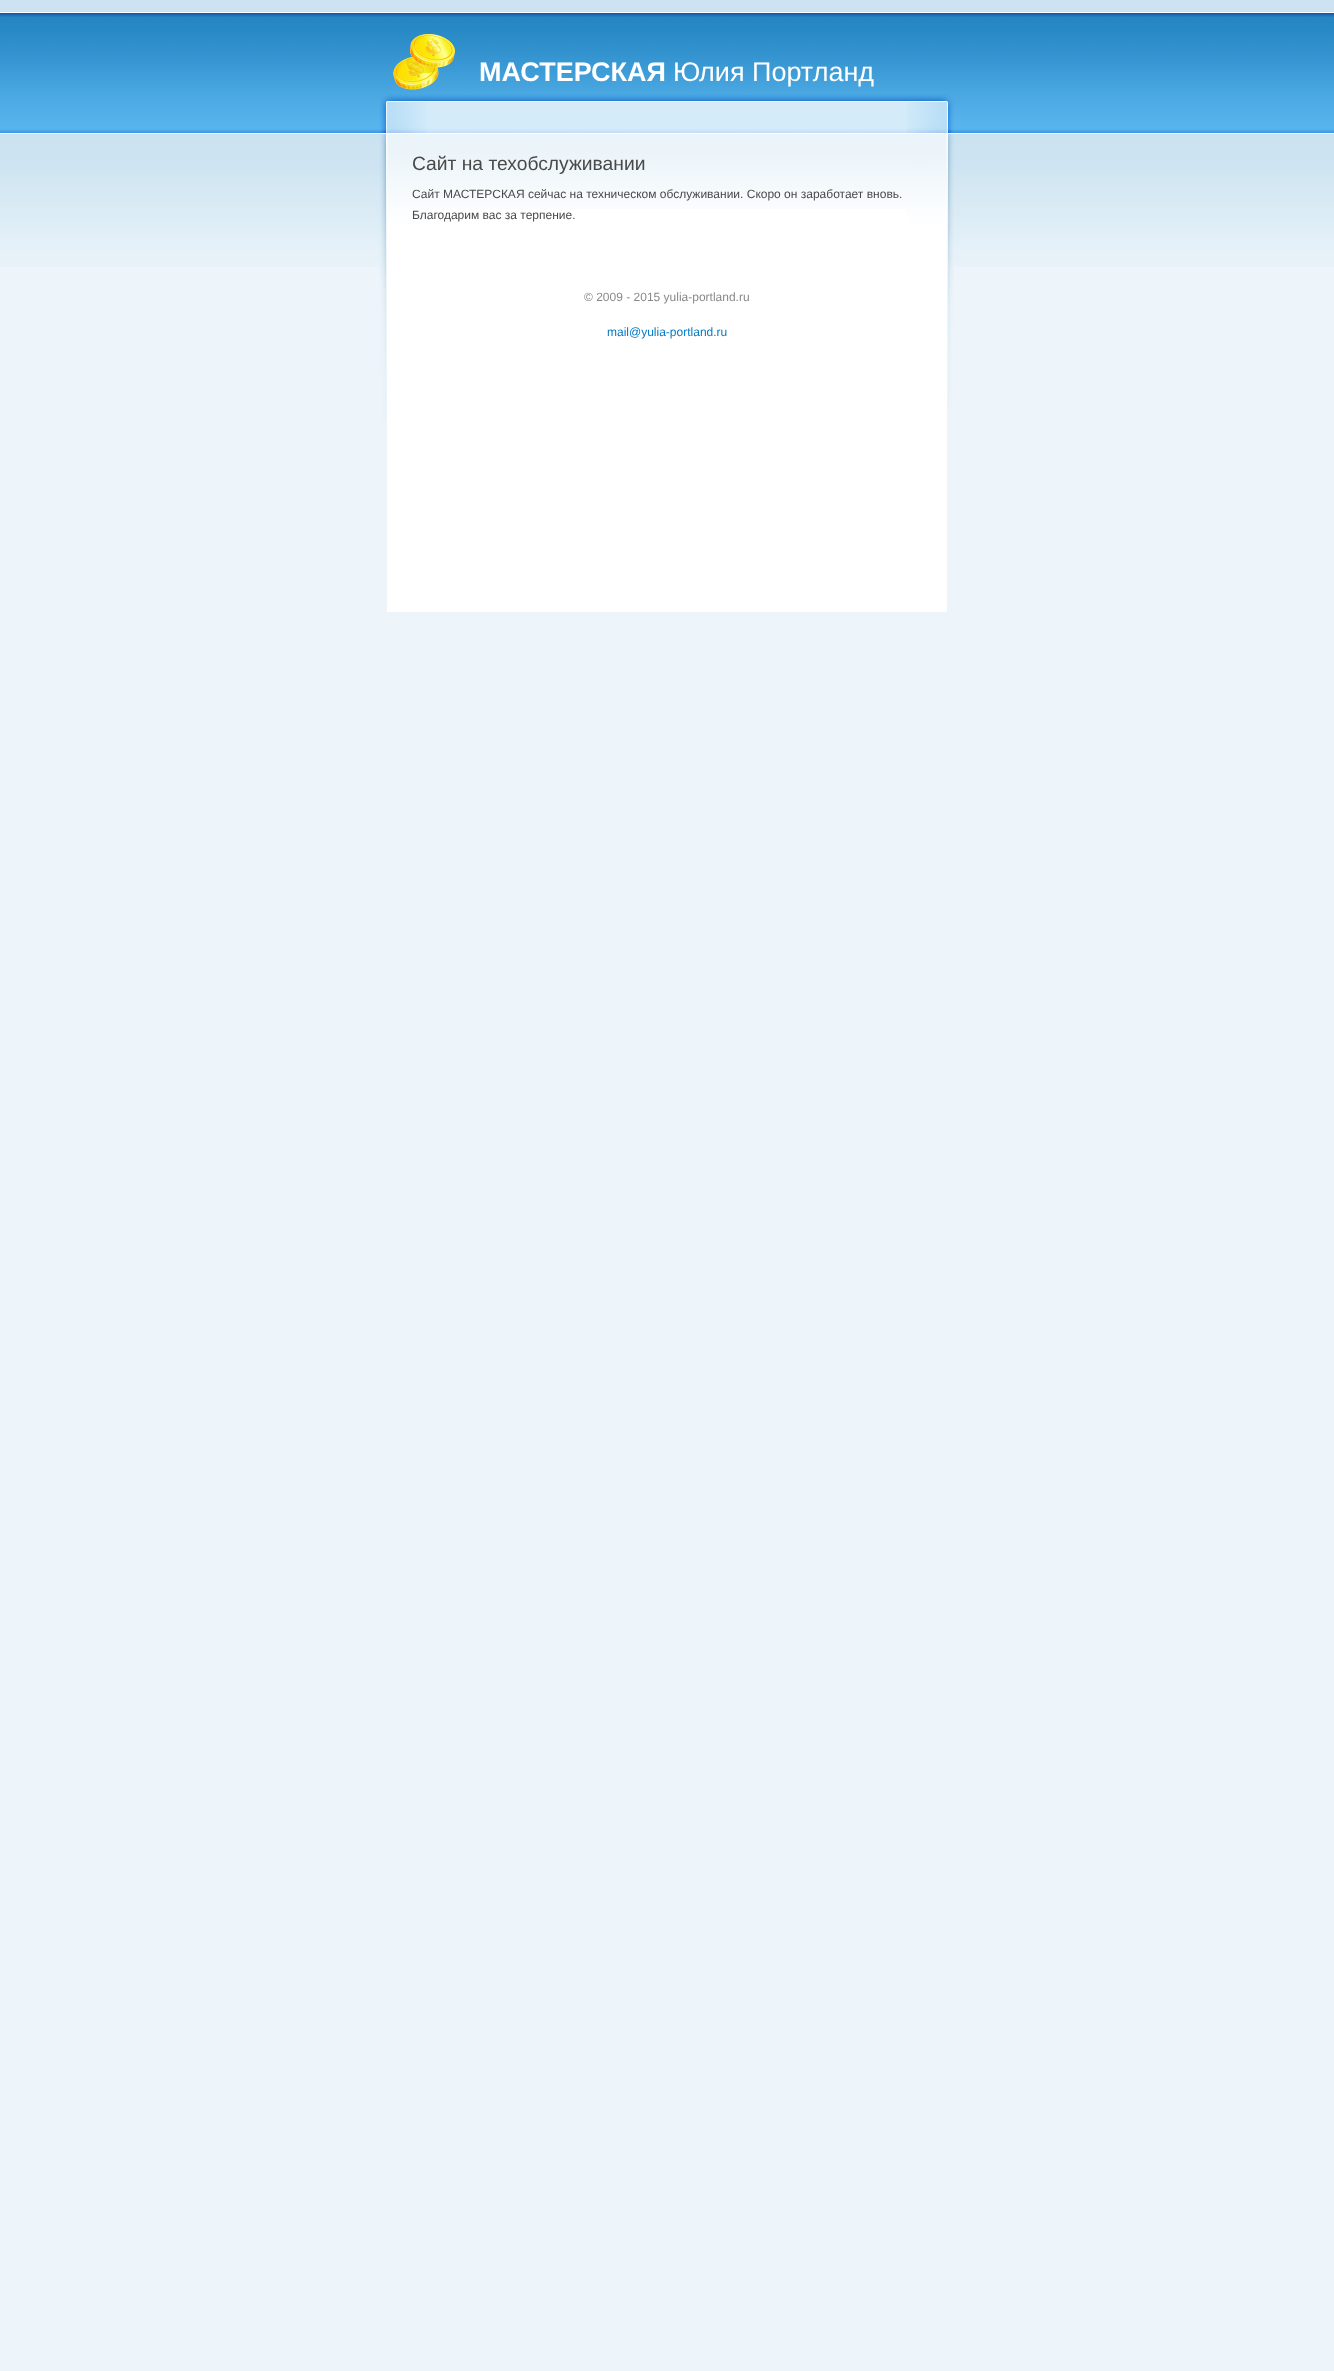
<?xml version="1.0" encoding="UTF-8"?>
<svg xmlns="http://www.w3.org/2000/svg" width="1334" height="2371">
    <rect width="100%" height="100%" fill="#EDF5FA"/>
    <rect x="0" y="0" width="1334" height="12" fill="#CDE3F1"/>
    <image x="0" y="12" width="1334" height="255" href="img_01.png"/>
    <image x="393" y="34" width="62" height="56" href="img_02.png"/>
    <text x="479" y="81" font-family="Liberation Sans" font-size="27" font-weight="700" fill="#FFFFFF">МАСТЕРСКАЯ</text>
    <text x="673" y="81" font-family="Liberation Sans" font-size="27" fill="#FFFFFF">Юлия Портланд</text>
    <rect x="387" y="209" width="560" height="403" fill="#FFFFFF"/>
    <image x="387" y="92" width="560" height="117" href="img_03.png"/>
    <image x="907" y="96" width="47" height="311" href="img_04.png"/>
    <image x="379" y="96" width="48" height="326" href="img_05.png"/>
    <text x="412" y="170" font-family="Liberation Sans" font-size="19.25" fill="#494949">Сайт на техобслуживании</text>
    <text font-family="Liberation Sans" font-size="12" fill="#494949">
        <tspan x="412" y="198">Сайт МАСТЕРСКАЯ сейчас на техническом обслуживании. Скоро он заработает вновь.</tspan>
        <tspan x="412" y="219">Благодарим вас за терпение.</tspan>
    </text>
    <text x="584" y="301" font-family="Liberation Sans" font-size="12" fill="#898989">© 2009 - 2015 yulia-portland.ru</text>
    <text x="607" y="336" font-family="Liberation Sans" font-size="12" fill="#027AC6">mail@yulia-portland.ru</text>
</svg>
